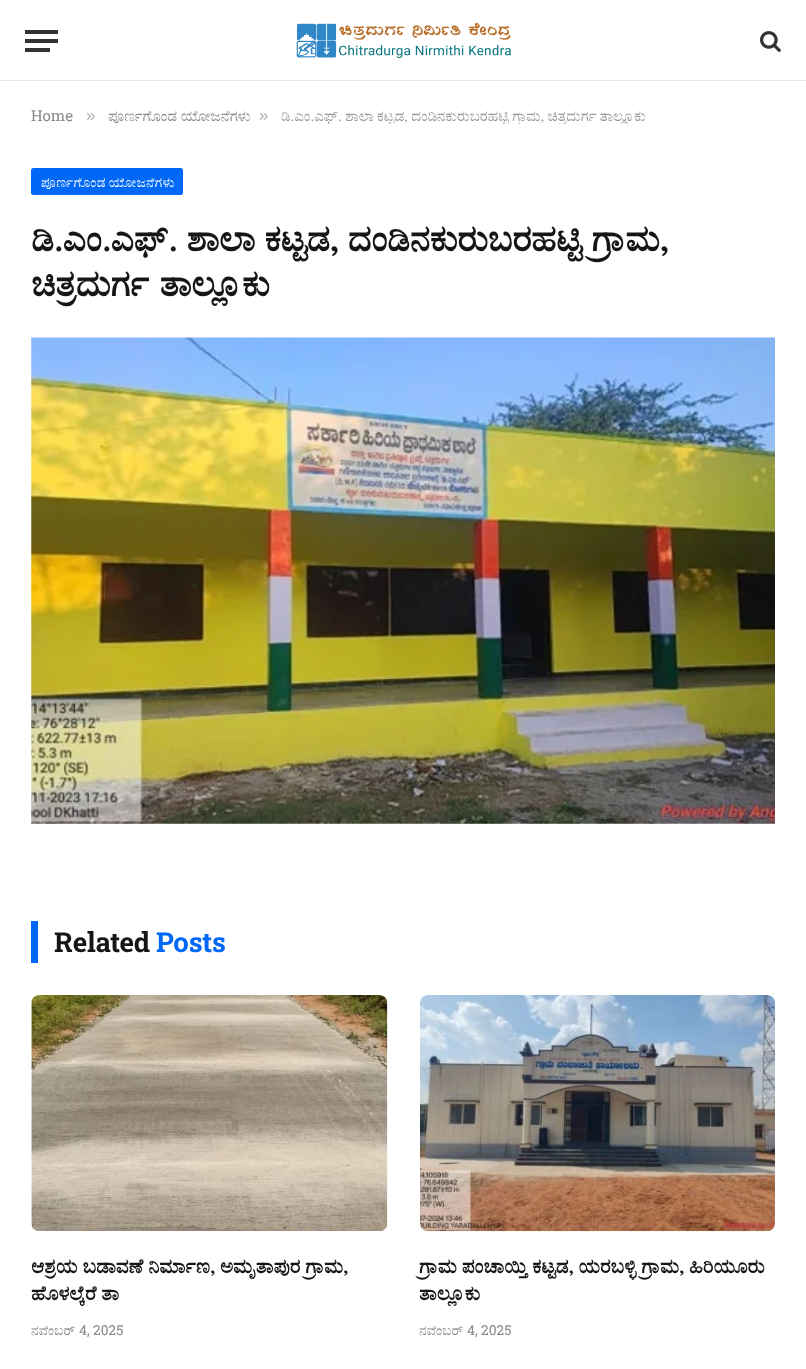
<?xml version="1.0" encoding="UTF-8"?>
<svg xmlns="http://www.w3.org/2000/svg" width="806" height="1369">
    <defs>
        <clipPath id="clip1"><rect x="0" y="106" width="806" height="18"/></clipPath>
    </defs>
    <rect width="100%" height="100%" fill="#FFFFFF"/>
    <rect x="0" y="80" width="806" height="1" fill="#E8E8E8"/>
    <rect x="25" y="48" width="25" height="4" fill="#333333"/>
    <rect x="25" y="30" width="33" height="4" fill="#333333"/>
    <rect x="25" y="39" width="33" height="4" fill="#333333"/>
    <image x="296" y="22" width="215" height="37" href="img_01.png"/>
    <image x="760" y="31" width="21" height="21" href="img_02.png"/>
    <text x="31" y="121" font-family="Roboto Slab" font-size="15" fill="#8A8A8A">Home</text>
    <text x="86" y="121" font-family="Liberation Sans" font-size="17" fill="#ADADAD">»</text>
    <text x="108" y="121" font-family="FreeSerif" font-size="15" fill="#8A8A8A">ಪೂರ್ಣಗೊಂಡ ಯೋಜನೆಗಳು</text>
    <text x="259" y="121" font-family="Liberation Sans" font-size="17" fill="#ADADAD">»</text>
    <g clip-path="url(#clip1)">
        <text x="281" y="121" word-spacing="-0.5" font-family="FreeSerif" font-size="15" fill="#999999">ಡಿ.ಎಂ.ಎಫ್. ಶಾಲಾ ಕಟ್ಟಡ, ದಂಡಿನಕುರುಬರಹಟ್ಟಿ ಗ್ರಾಮ, ಚಿತ್ರದುರ್ಗ ತಾಲ್ಲೂಕು</text>
    </g>
    <rect x="31" y="168" width="152" height="27" rx="2.5" fill="#0068F7"/>
    <text x="41" y="187" word-spacing="-1" font-family="FreeSerif" font-size="13.75" letter-spacing="0.4" fill="#FFFFFF">ಪೂರ್ಣಗೊಂಡ ಯೋಜನೆಗಳು</text>
    <text font-family="FreeSerif" font-size="36.25" font-weight="700" letter-spacing="-0.2" fill="#161616">
        <tspan x="31" y="251" word-spacing="0.5">ಡಿ.ಎಂ.ಎಫ್. ಶಾಲಾ ಕಟ್ಟಡ, ದಂಡಿನಕುರುಬರಹಟ್ಟಿ ಗ್ರಾಮ,</tspan>
        <tspan x="31" y="296" word-spacing="2">ಚಿತ್ರದುರ್ಗ ತಾಲ್ಲೂಕು</tspan>
    </text>
    <image x="31" y="337" width="744" height="487" href="img_03.png"/>
    <rect x="31" y="921" width="7" height="42" fill="#0068F7"/>
    <text x="54" y="952" font-family="Roboto Slab" font-size="27.5" font-weight="700" letter-spacing="-0.25" fill="#161616">Related</text>
    <text x="156" y="952" font-family="Roboto Slab" font-size="27.5" font-weight="700" letter-spacing="-0.25" fill="#0068F7">Posts</text>
    <image x="31" y="995" width="357" height="236" href="img_04.png"/>
    <text font-family="FreeSerif" font-size="20" font-weight="700" fill="#161616">
        <tspan x="31" y="1273">ಆಶ್ರಯ ಬಡಾವಣೆ ನಿರ್ಮಾಣ, ಅಮೃತಾಪುರ ಗ್ರಾಮ,</tspan>
        <tspan x="31" y="1300">ಹೊಳಲ್ಕೆರೆ ತಾ</tspan>
    </text>
    <text x="31" y="1335" font-family="FreeSerif" font-size="13.75" fill="#8A8A8A">ನವೆಂಬರ್</text>
    <text x="79" y="1335" font-family="Roboto Slab" font-size="13.75" fill="#8A8A8A">4, 2025</text>
    <image x="420" y="995" width="355" height="237" href="img_05.png"/>
    <text font-family="FreeSerif" font-size="20" font-weight="700" fill="#161616">
        <tspan x="419" y="1273">ಗ್ರಾಮ ಪಂಚಾಯ್ತಿ ಕಟ್ಟಡ, ಯರಬಳ್ಳಿ ಗ್ರಾಮ, ಹಿರಿಯೂರು</tspan>
        <tspan x="419" y="1300">ತಾಲ್ಲೂಕು</tspan>
    </text>
    <text x="419" y="1335" font-family="FreeSerif" font-size="13.75" fill="#8A8A8A">ನವೆಂಬರ್</text>
    <text x="467" y="1335" font-family="Roboto Slab" font-size="13.75" fill="#8A8A8A">4, 2025</text>
</svg>
